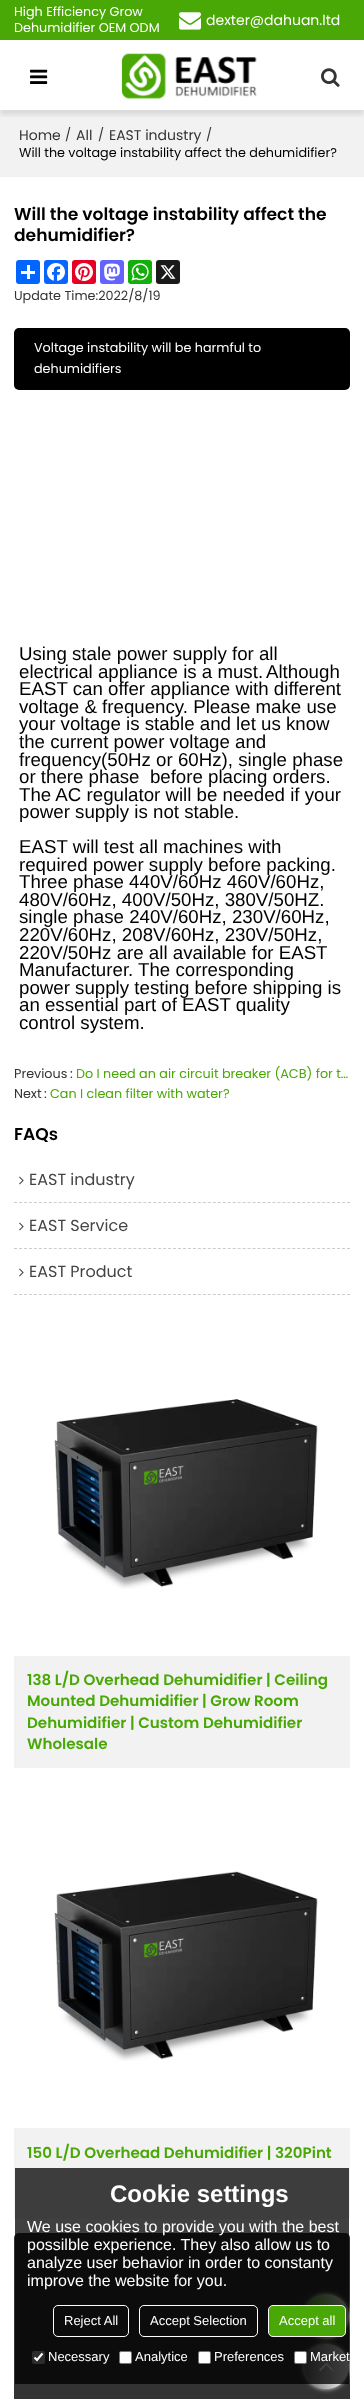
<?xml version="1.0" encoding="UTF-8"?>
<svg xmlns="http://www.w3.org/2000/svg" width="364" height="2399">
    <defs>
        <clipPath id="clip1"><rect x="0" y="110" width="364" height="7"/></clipPath>
        <filter id="blur1" x="-50%" y="-200%" width="200%" height="500%"><feGaussianBlur stdDeviation="2.5"/></filter>
        <linearGradient id="g1" gradientUnits="userSpaceOnUse" x1="304" y1="2317" x2="349" y2="2317"><stop offset="0" stop-color="#49A805"/><stop offset="1" stop-color="#FFFFFF"/></linearGradient>
        <linearGradient id="g2" gradientUnits="userSpaceOnUse" x1="304" y1="2367" x2="349" y2="2367"><stop offset="0" stop-color="#666666"/><stop offset="1" stop-color="#FFFFFF"/></linearGradient>
    </defs>
    <rect width="100%" height="100%" fill="#FFFFFF"/>
    <rect x="0" y="110" width="364" height="67" fill="#F2F2F2"/>
    <g clip-path="url(#clip1)">
        <rect x="0" y="45" width="364" height="70" fill="#000000" fill-opacity="0.1" filter="url(#blur1)"/>
    </g>
    <rect x="0" y="0" width="364" height="40" fill="#49A805"/>
    <text font-family="Poppins" font-size="12.75" fill="#FFFFFF">
        <tspan x="14" y="16">High Efficiency Grow</tspan>
        <tspan x="14" y="32">Dehumidifier OEM ODM</tspan>
    </text>
    <image x="179" y="12" width="22" height="18" href="img_01.png"/>
    <text x="206" y="25" font-family="Poppins" font-size="14" fill="#FFFFFF">dexter@dahuan.ltd</text>
    <image x="30" y="69" width="18" height="15" href="img_02.png"/>
    <image x="121" y="53" width="136" height="46" href="img_03.png"/>
    <image x="321" y="68" width="19" height="19" href="img_04.png"/>
    <text x="19" y="140" font-family="Poppins" font-size="14" fill="#333333">Home</text>
    <text x="65" y="139" font-family="Poppins" font-size="12.75" fill="#333333">/</text>
    <text x="76" y="140" font-family="Poppins" font-size="14" fill="#333333">All</text>
    <text x="98" y="139" font-family="Poppins" font-size="12.75" fill="#333333">/</text>
    <text x="109" y="140" font-family="Poppins" font-size="14" fill="#333333">EAST industry</text>
    <text x="206" y="139" font-family="Poppins" font-size="12.75" fill="#333333">/</text>
    <text x="19" y="157" font-family="Poppins" font-size="12.75" fill="#000000">Will the voltage instability affect the dehumidifier?</text>
    <text font-family="Poppins" font-size="17.1" font-weight="600" fill="#000000">
        <tspan x="14" y="220">Will the voltage instability affect the</tspan>
        <tspan x="14" y="241">dehumidifier?</tspan>
    </text>
    <rect x="16" y="260" width="24" height="24" rx="3" fill="#0166FF"/>
    <rect x="27" y="265" width="3" height="14" fill="#FFFFFF"/>
    <rect x="21" y="271" width="14" height="3" fill="#FFFFFF"/>
    <rect x="44" y="260" width="24" height="24" rx="3" fill="#0866FF"/>
    <image x="47" y="263" width="18" height="18" href="img_05.png"/>
    <rect x="72" y="260" width="24" height="24" rx="3" fill="#E60023"/>
    <image x="75" y="263" width="18" height="18" href="img_06.png"/>
    <rect x="100" y="260" width="24" height="24" rx="3" fill="#6364FF"/>
    <image x="104" y="263" width="16" height="18" href="img_07.png"/>
    <rect x="128" y="260" width="24" height="24" rx="3" fill="#12AF0A"/>
    <image x="131" y="263" width="18" height="18" href="img_08.png"/>
    <rect x="156" y="260" width="24" height="24" rx="3" fill="#1A1A1A"/>
    <image x="160" y="265" width="16" height="14" href="img_09.png"/>
    <text x="14" y="300" font-family="Poppins" font-size="12.75" fill="#333333">Update Time:2022/8/19</text>
    <rect x="14" y="328" width="336" height="62" rx="5" fill="#000000"/>
    <text font-family="Poppins" font-size="12.75" fill="#FFFFFF">
        <tspan x="34" y="352">Voltage instability will be harmful to</tspan>
        <tspan x="34" y="373">dehumidifiers</tspan>
    </text>
    <text font-family="Liberation Sans" font-size="18.7" fill="#000000">
        <tspan x="19" y="660">Using stale power supply for all</tspan>
        <tspan x="19" y="678">electrical appliance is a must.</tspan>
    </text>
    <text x="266" y="678" font-family="Liberation Sans" font-size="18.7" fill="#000000">Although</text>
    <text font-family="Liberation Sans" font-size="18.7" fill="#000000" xml:space="preserve"><tspan x="19" y="695">EAST can offer appliance with different</tspan><tspan x="19" y="713">voltage &amp; frequency. Please make use</tspan><tspan x="19" y="730">your voltage is stable and let us know</tspan><tspan x="19" y="748">the current power voltage and</tspan><tspan x="19" y="766">frequency(50Hz or 60Hz), single phase</tspan><tspan x="19" y="783">or there phase  before placing orders.</tspan><tspan x="19" y="801">The AC regulator will be needed if your</tspan><tspan x="19" y="818">power supply is not stable.</tspan><tspan x="19" y="853">EAST will test all machines with</tspan><tspan x="19" y="871">required power supply before packing.</tspan><tspan x="19" y="888">Three phase 440V/60Hz 460V/60Hz,</tspan><tspan x="19" y="906">480V/60Hz, 400V/50Hz, 380V/50HZ.</tspan><tspan x="19" y="923">single phase 240V/60Hz, 230V/60Hz,</tspan><tspan x="19" y="941">220V/60Hz, 208V/60Hz, 230V/50Hz,</tspan><tspan x="19" y="959">220V/50Hz are all available for EAST</tspan><tspan x="19" y="976">Manufacturer</tspan></text>
    <text x="128" y="976" font-family="Liberation Sans" font-size="18.7" fill="#000000">. The corresponding</text>
    <text font-family="Liberation Sans" font-size="18.7" fill="#000000">
        <tspan x="19" y="994">power supply testing before shipping is</tspan>
        <tspan x="19" y="1011">an essential part of EAST quality</tspan>
        <tspan x="19" y="1029">control system.</tspan>
    </text>
    <text x="14" y="1078" font-family="Poppins" font-size="12.75" fill="#333333">Previous</text>
    <text x="70" y="1078" font-family="Poppins" font-size="12.75" fill="#333333">:</text>
    <text x="76" y="1078" font-family="Poppins" font-size="12.75" fill="#49A805">Do I need an air circuit breaker (ACB) for t…</text>
    <text x="14" y="1098" font-family="Poppins" font-size="12.75" fill="#333333">Next</text>
    <text x="44" y="1098" font-family="Poppins" font-size="12.75" fill="#333333">:</text>
    <text x="50" y="1098" font-family="Poppins" font-size="12.75" fill="#49A805">Can I clean filter with water?</text>
    <text x="14" y="1140" font-family="Poppins" font-size="17.1" font-weight="600" fill="#000000">FAQs</text>
    <path d="M 14 1202.5 H 350" fill="none" stroke="#CCCCCC" stroke-dasharray="3 1.97"/>
    <image x="19" y="1176" width="5" height="9" href="img_10.png"/>
    <text x="29" y="1185" font-family="Poppins" font-size="16" fill="#444444">EAST industry</text>
    <path d="M 14 1248.5 H 350" fill="none" stroke="#CCCCCC" stroke-dasharray="3 1.97"/>
    <image x="19" y="1222" width="5" height="9" href="img_10.png"/>
    <text x="29" y="1231" font-family="Poppins" font-size="16" fill="#444444">EAST Service</text>
    <path d="M 14 1294.5 H 350" fill="none" stroke="#CCCCCC" stroke-dasharray="3 1.97"/>
    <image x="19" y="1268" width="5" height="9" href="img_10.png"/>
    <text x="29" y="1277" font-family="Poppins" font-size="16" fill="#444444">EAST Product</text>
    <image x="54" y="1399" width="264" height="190" href="img_11.png"/>
    <rect x="14" y="1656" width="336" height="112" fill="#F2F2F2"/>
    <text font-family="Poppins" font-size="15.1" font-weight="600" fill="#49A805">
        <tspan x="27" y="1685">138 L/D Overhead Dehumidifier | Ceiling</tspan>
        <tspan x="27" y="1706">Mounted Dehumidifier | Grow Room</tspan>
        <tspan x="27" y="1728">Dehumidifier | Custom Dehumidifier</tspan>
        <tspan x="27" y="1749">Wholesale</tspan>
    </text>
    <image x="54" y="1871" width="264" height="190" href="img_12.png"/>
    <rect x="14" y="2128" width="336" height="91" fill="#F2F2F2"/>
    <text x="27" y="2158" font-family="Poppins" font-size="15.1" font-weight="600" fill="#49A805">150 L/D Overhead Dehumidifier | 320Pint</text>
    <rect x="14" y="2233" width="336" height="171" rx="5" fill="#333333"/>
    <rect x="304" y="2294" width="45" height="45" rx="22.5" fill="#EEEEEE" filter="url(#blur1)"/>
    <circle cx="326.5" cy="2316.5" r="22.5" fill="url(#g1)"/>
    <rect x="304" y="2344" width="45" height="45" rx="22.5" fill="#EEEEEE" filter="url(#blur1)"/>
    <circle cx="326.5" cy="2366.5" r="22.5" fill="url(#g2)"/>
    <image x="319" y="2362" width="15" height="9" href="img_13.png"/>
    <rect x="15" y="2168" width="334" height="216" fill="#000000" fill-opacity="0.75"/>
    <text x="110" y="2202" font-family="Liberation Sans" font-size="24" font-weight="700" fill="#FFFFFF">Cookie settings</text>
    <text font-family="Liberation Sans" font-size="16" fill="#FFFFFF">
        <tspan x="27" y="2232">We use cookies to provide you with the best</tspan>
        <tspan x="27" y="2250">possilble experience. They also allow us to</tspan>
        <tspan x="27" y="2268">analyze user behavior in order to constanty</tspan>
        <tspan x="27" y="2286">improve the website for you.</tspan>
    </text>
    <rect x="53.5" y="2305.5" width="75" height="31" rx="4.5" fill="none" stroke="#FFFFFF"/>
    <text x="64" y="2325" font-family="Liberation Sans" font-size="13" fill="#FFFFFF">Reject All</text>
    <rect x="139.5" y="2305.5" width="118" height="31" rx="4.5" fill="none" stroke="#FFFFFF"/>
    <text x="150" y="2325" font-family="Liberation Sans" font-size="13" fill="#FFFFFF">Accept Selection</text>
    <rect x="268.5" y="2305.5" width="77" height="31" rx="4.5" fill="#49A805" stroke="#FFFFFF"/>
    <text x="279" y="2325" font-family="Liberation Sans" font-size="13" fill="#FFFFFF">Accept all</text>
    <rect x="32" y="2351" width="13" height="13" rx="2" fill="#767676" fill-opacity="0.3"/>
    <path d="M 34.5 2357.5 L 37 2360 L 42.5 2353.5" fill="none" stroke="#FFFFFF" stroke-width="2.1"/>
    <text x="48" y="2361" font-family="Liberation Sans" font-size="13" fill="#FFFFFF">Necessary</text>
    <rect x="119.5" y="2351.5" width="12" height="12" rx="1.5" fill="#FFFFFF" stroke="#767676"/>
    <text x="135" y="2361" font-family="Liberation Sans" font-size="13" fill="#FFFFFF">Analytice</text>
    <rect x="198.5" y="2351.5" width="12" height="12" rx="1.5" fill="#FFFFFF" stroke="#767676"/>
    <text x="214" y="2361" font-family="Liberation Sans" font-size="13" fill="#FFFFFF">Preferences</text>
    <rect x="294.5" y="2351.5" width="12" height="12" rx="1.5" fill="#FFFFFF" stroke="#767676"/>
    <text x="310" y="2361" font-family="Liberation Sans" font-size="13" fill="#FFFFFF">Market</text>
</svg>
